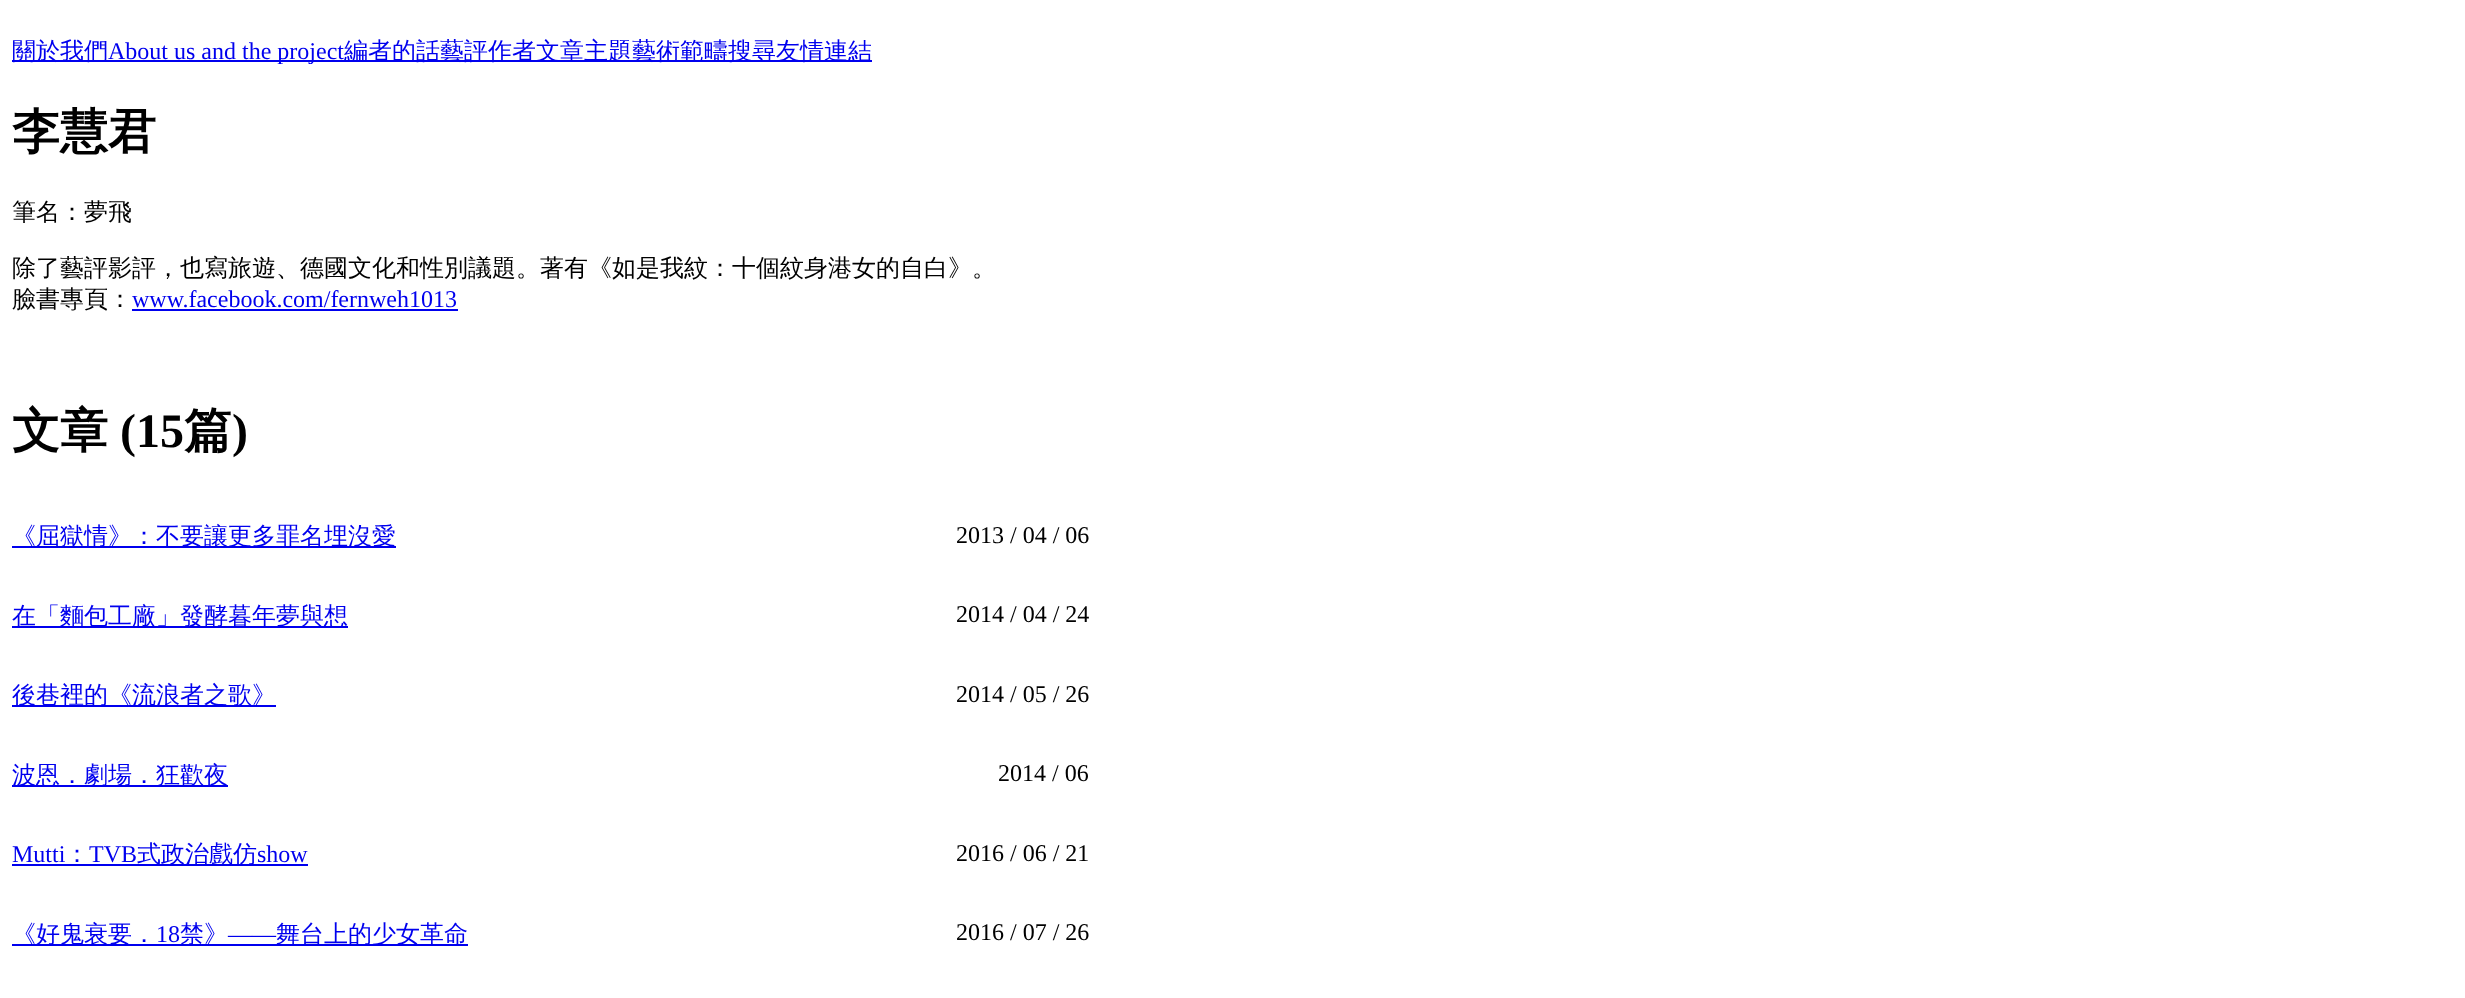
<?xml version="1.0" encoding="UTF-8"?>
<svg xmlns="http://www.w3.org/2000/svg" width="2465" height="998">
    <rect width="100%" height="100%" fill="#FFFFFF"/>
    <rect x="12" y="60" width="860" height="2" fill="#0000EE"/>
    <text x="12" y="59" font-family="WenQuanYi Zen Hei" font-size="24" font-weight="500" fill="#0000EE">關於我們</text>
    <text x="108" y="59" font-family="Liberation Serif" font-size="24" fill="#0000EE">About us and the project</text>
    <text x="344" y="59" font-family="WenQuanYi Zen Hei" font-size="24" font-weight="500" fill="#0000EE">編者的話藝評作者文章主題藝術範疇搜尋友情連結</text>
    <text x="12" y="148" font-family="WenQuanYi Zen Hei" font-size="48" font-weight="700" fill="#000000">李慧君</text>
    <text x="12" y="220" font-family="WenQuanYi Zen Hei" font-size="24" font-weight="500" fill="#000000">筆名：夢飛</text>
    <text font-family="WenQuanYi Zen Hei" font-size="24" font-weight="500" fill="#000000">
        <tspan x="12" y="276">除了藝評影評，也寫旅遊、德國文化和性別議題。著有《如是我紋：十個紋身港女的自白》。</tspan>
        <tspan x="12" y="307">臉書專頁：</tspan>
    </text>
    <text x="132" y="307" font-family="Liberation Serif" font-size="24" fill="#0000EE">www.facebook.com/fernweh1013</text>
    <rect x="132" y="309" width="326" height="2" fill="#0000EE"/>
    <text x="12" y="447" font-family="WenQuanYi Zen Hei" font-size="48" font-weight="700" fill="#000000">文章</text>
    <text x="120" y="447" font-family="Liberation Serif" font-size="48" font-weight="700" fill="#000000">(15</text>
    <text x="184" y="447" font-family="WenQuanYi Zen Hei" font-size="48" font-weight="700" fill="#000000">篇</text>
    <text x="232" y="447" font-family="Liberation Serif" font-size="48" font-weight="700" fill="#000000">)</text>
    <rect x="12" y="546" width="384" height="2" fill="#0000EE"/>
    <text x="12" y="544" font-family="WenQuanYi Zen Hei" font-size="24" font-weight="500" fill="#0000EE">《屈獄情》：不要讓更多罪名埋沒愛</text>
    <text x="956" y="543" font-family="Liberation Serif" font-size="24" fill="#000000">2013 / 04 / 06</text>
    <rect x="12" y="626" width="336" height="2" fill="#0000EE"/>
    <text x="12" y="624" font-family="WenQuanYi Zen Hei" font-size="24" font-weight="500" fill="#0000EE">在「麵包工廠」發酵暮年夢與想</text>
    <text x="956" y="622" font-family="Liberation Serif" font-size="24" fill="#000000">2014 / 04 / 24</text>
    <rect x="12" y="705" width="264" height="2" fill="#0000EE"/>
    <text x="12" y="703" font-family="WenQuanYi Zen Hei" font-size="24" font-weight="500" fill="#0000EE">後巷裡的《流浪者之歌》</text>
    <text x="956" y="702" font-family="Liberation Serif" font-size="24" fill="#000000">2014 / 05 / 26</text>
    <rect x="12" y="785" width="216" height="2" fill="#0000EE"/>
    <text x="12" y="783" font-family="WenQuanYi Zen Hei" font-size="24" font-weight="500" fill="#0000EE">波恩．劇場．狂歡夜</text>
    <text x="998" y="781" font-family="Liberation Serif" font-size="24" fill="#000000">2014 / 06</text>
    <text x="12" y="862" font-family="Liberation Serif" font-size="24" fill="#0000EE">Mutti</text>
    <text x="65" y="862" font-family="WenQuanYi Zen Hei" font-size="24" font-weight="500" fill="#0000EE">：</text>
    <rect x="12" y="864" width="296" height="2" fill="#0000EE"/>
    <text x="89" y="862" font-family="Liberation Serif" font-size="24" fill="#0000EE">TVB</text>
    <text x="137" y="862" font-family="WenQuanYi Zen Hei" font-size="24" font-weight="500" fill="#0000EE">式政治戲仿</text>
    <text x="257" y="862" font-family="Liberation Serif" font-size="24" fill="#0000EE">show</text>
    <text x="956" y="861" font-family="Liberation Serif" font-size="24" fill="#000000">2016 / 06 / 21</text>
    <rect x="12" y="944" width="456" height="2" fill="#0000EE"/>
    <text x="12" y="942" font-family="WenQuanYi Zen Hei" font-size="24" font-weight="500" fill="#0000EE">《好鬼衰要．</text>
    <text x="156" y="942" font-family="Liberation Serif" font-size="24" fill="#0000EE">18</text>
    <text x="180" y="942" font-family="WenQuanYi Zen Hei" font-size="24" font-weight="500" fill="#0000EE">禁》</text>
    <text x="228" y="942" font-family="Liberation Serif" font-size="24" fill="#0000EE">——</text>
    <text x="276" y="942" font-family="WenQuanYi Zen Hei" font-size="24" font-weight="500" fill="#0000EE">舞台上的少女革命</text>
    <text x="956" y="940" font-family="Liberation Serif" font-size="24" fill="#000000">2016 / 07 / 26</text>
</svg>
